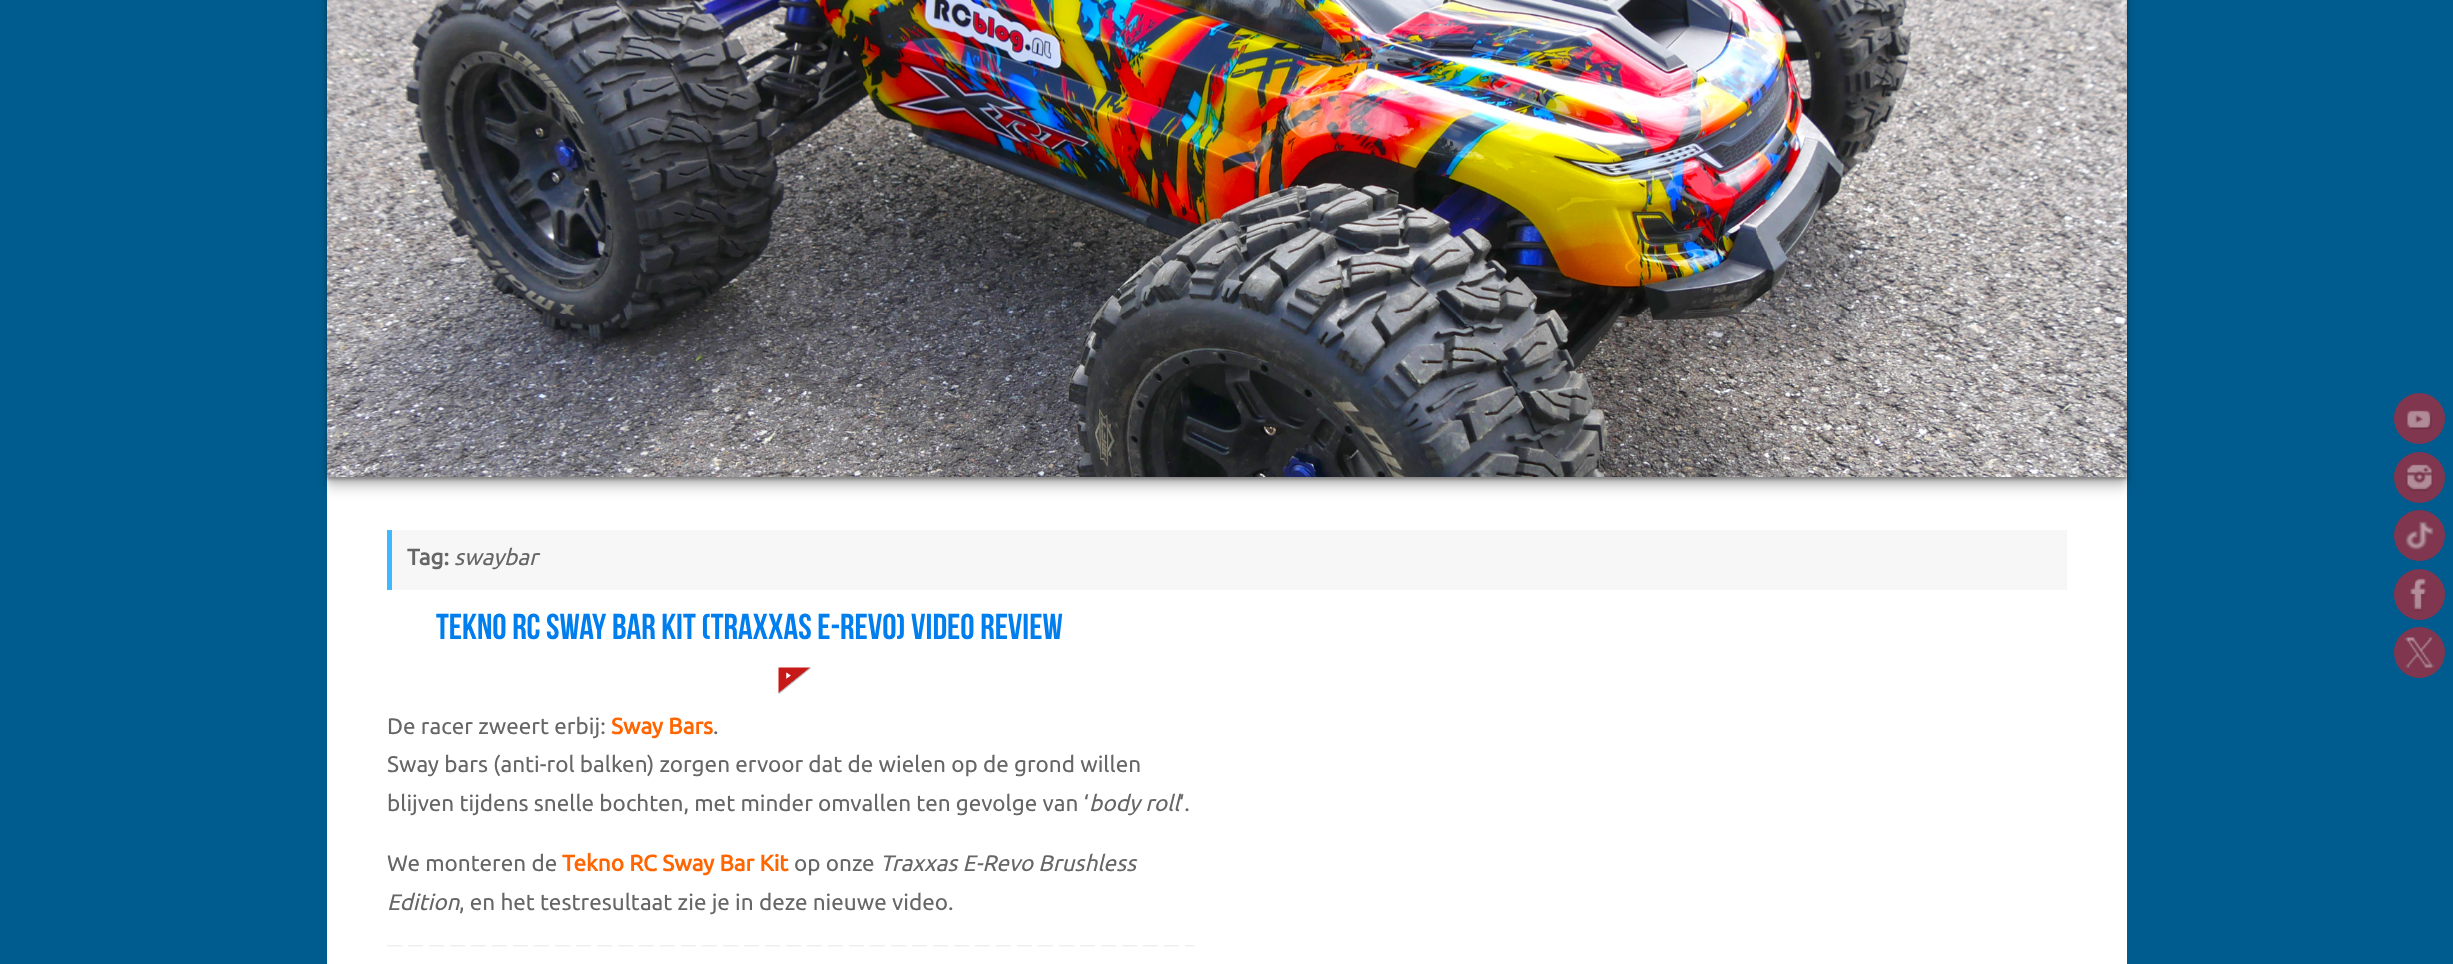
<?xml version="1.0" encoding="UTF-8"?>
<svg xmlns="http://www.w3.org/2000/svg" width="2453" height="964">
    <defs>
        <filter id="blur1" x="-50%" y="-200%" width="200%" height="500%"><feGaussianBlur stdDeviation="6"/></filter>
        <filter id="blur2" x="-50%" y="-200%" width="200%" height="500%"><feGaussianBlur stdDeviation="3"/></filter>
        <filter id="blur3" x="-50%" y="-200%" width="200%" height="500%"><feGaussianBlur stdDeviation="1.5"/></filter>
        <filter id="blur4" x="-50%" y="-200%" width="200%" height="500%"><feGaussianBlur stdDeviation="1"/></filter>
    </defs>
    <rect width="100%" height="100%" fill="#005C8E"/>
    <rect x="327" y="477" width="1800" height="487" fill="#FFFFFF"/>
    <rect x="327" y="-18" width="1800" height="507" fill="#000000" fill-opacity="0.15" filter="url(#blur1)"/>
    <rect x="327" y="-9" width="1800" height="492" fill="#000000" fill-opacity="0.15" filter="url(#blur2)"/>
    <rect x="327" y="-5" width="1800" height="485" fill="#000000" fill-opacity="0.15" filter="url(#blur3)"/>
    <rect x="327" y="-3" width="1800" height="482" fill="#000000" fill-opacity="0.15" filter="url(#blur4)"/>
    <image x="327" y="0" width="1800" height="477" href="img_01.png"/>
    <rect x="392" y="530" width="1675" height="60" fill="#F7F7F7"/>
    <rect x="387" y="530" width="5" height="60" fill="#3FB8FF"/>
    <text x="407" y="565" font-family="Ubuntu" font-size="22.5" font-weight="700" fill="#666666">Tag:</text>
    <text x="454" y="565" font-family="Ubuntu" font-size="22.5" font-style="italic" fill="#666666">swaybar</text>
    <text x="436" y="639" font-family="Bebas Neue" font-size="36" fill="#007EEE">Tekno RC Sway Bar Kit (Traxxas E-Revo) video review</text>
    <image x="778" y="667" width="33" height="27" href="img_02.png"/>
    <text x="387" y="734" font-family="Ubuntu" font-size="22.5" fill="#666666">De racer zweert erbij:</text>
    <text x="611" y="734" font-family="Ubuntu" font-size="22.5" font-weight="700" fill="#FF6600">Sway Bars</text>
    <text x="713" y="734" font-family="Ubuntu" font-size="22.5" fill="#666666">.</text>
    <text font-family="Ubuntu" font-size="22.5" fill="#666666">
        <tspan x="387" y="772">Sway bars (anti-rol balken) zorgen ervoor dat de wielen op de grond willen</tspan>
        <tspan x="387" y="811">blijven tijdens snelle bochten, met minder omvallen ten gevolge van ‘</tspan>
    </text>
    <text x="1089" y="811" font-family="Ubuntu" font-size="22.5" font-style="italic" fill="#666666">body roll</text>
    <text x="1179" y="811" font-family="Ubuntu" font-size="22.5" fill="#666666">‘.</text>
    <text x="387" y="871" font-family="Ubuntu" font-size="22.5" fill="#666666">We monteren de</text>
    <text x="562" y="871" font-family="Ubuntu" font-size="22.5" font-weight="700" fill="#FF6600">Tekno RC Sway Bar Kit</text>
    <text x="794" y="871" font-family="Ubuntu" font-size="22.5" fill="#666666">op onze</text>
    <text x="880" y="871" font-family="Ubuntu" font-size="22.5" font-style="italic" fill="#666666">Traxxas E-Revo Brushless</text>
    <text x="387" y="910" font-family="Ubuntu" font-size="22.5" font-style="italic" fill="#666666">Edition</text>
    <text x="459" y="910" font-family="Ubuntu" font-size="22.5" fill="#666666">, en het testresultaat zie je in deze nieuwe video.</text>
    <image x="387" y="945" width="807" height="2" href="img_03.png"/>
    <circle cx="2419.5" cy="418.5" r="25.5" fill="#80364F"/>
    <image x="2407" y="410" width="25" height="20" href="img_04.png"/>
    <circle cx="2419.5" cy="477.5" r="25.5" fill="#80364F"/>
    <image x="2406" y="464" width="27" height="28" href="img_05.png"/>
    <circle cx="2419.5" cy="535.5" r="25.5" fill="#80364F"/>
    <image x="2405" y="521" width="29" height="29" href="img_06.png"/>
    <circle cx="2419.5" cy="594.5" r="25.5" fill="#80364F"/>
    <image x="2410" y="578" width="16" height="34" href="img_07.png"/>
    <circle cx="2419.5" cy="652.5" r="25.5" fill="#80364F"/>
    <image x="2404" y="637" width="31" height="31" href="img_08.png"/>
</svg>
